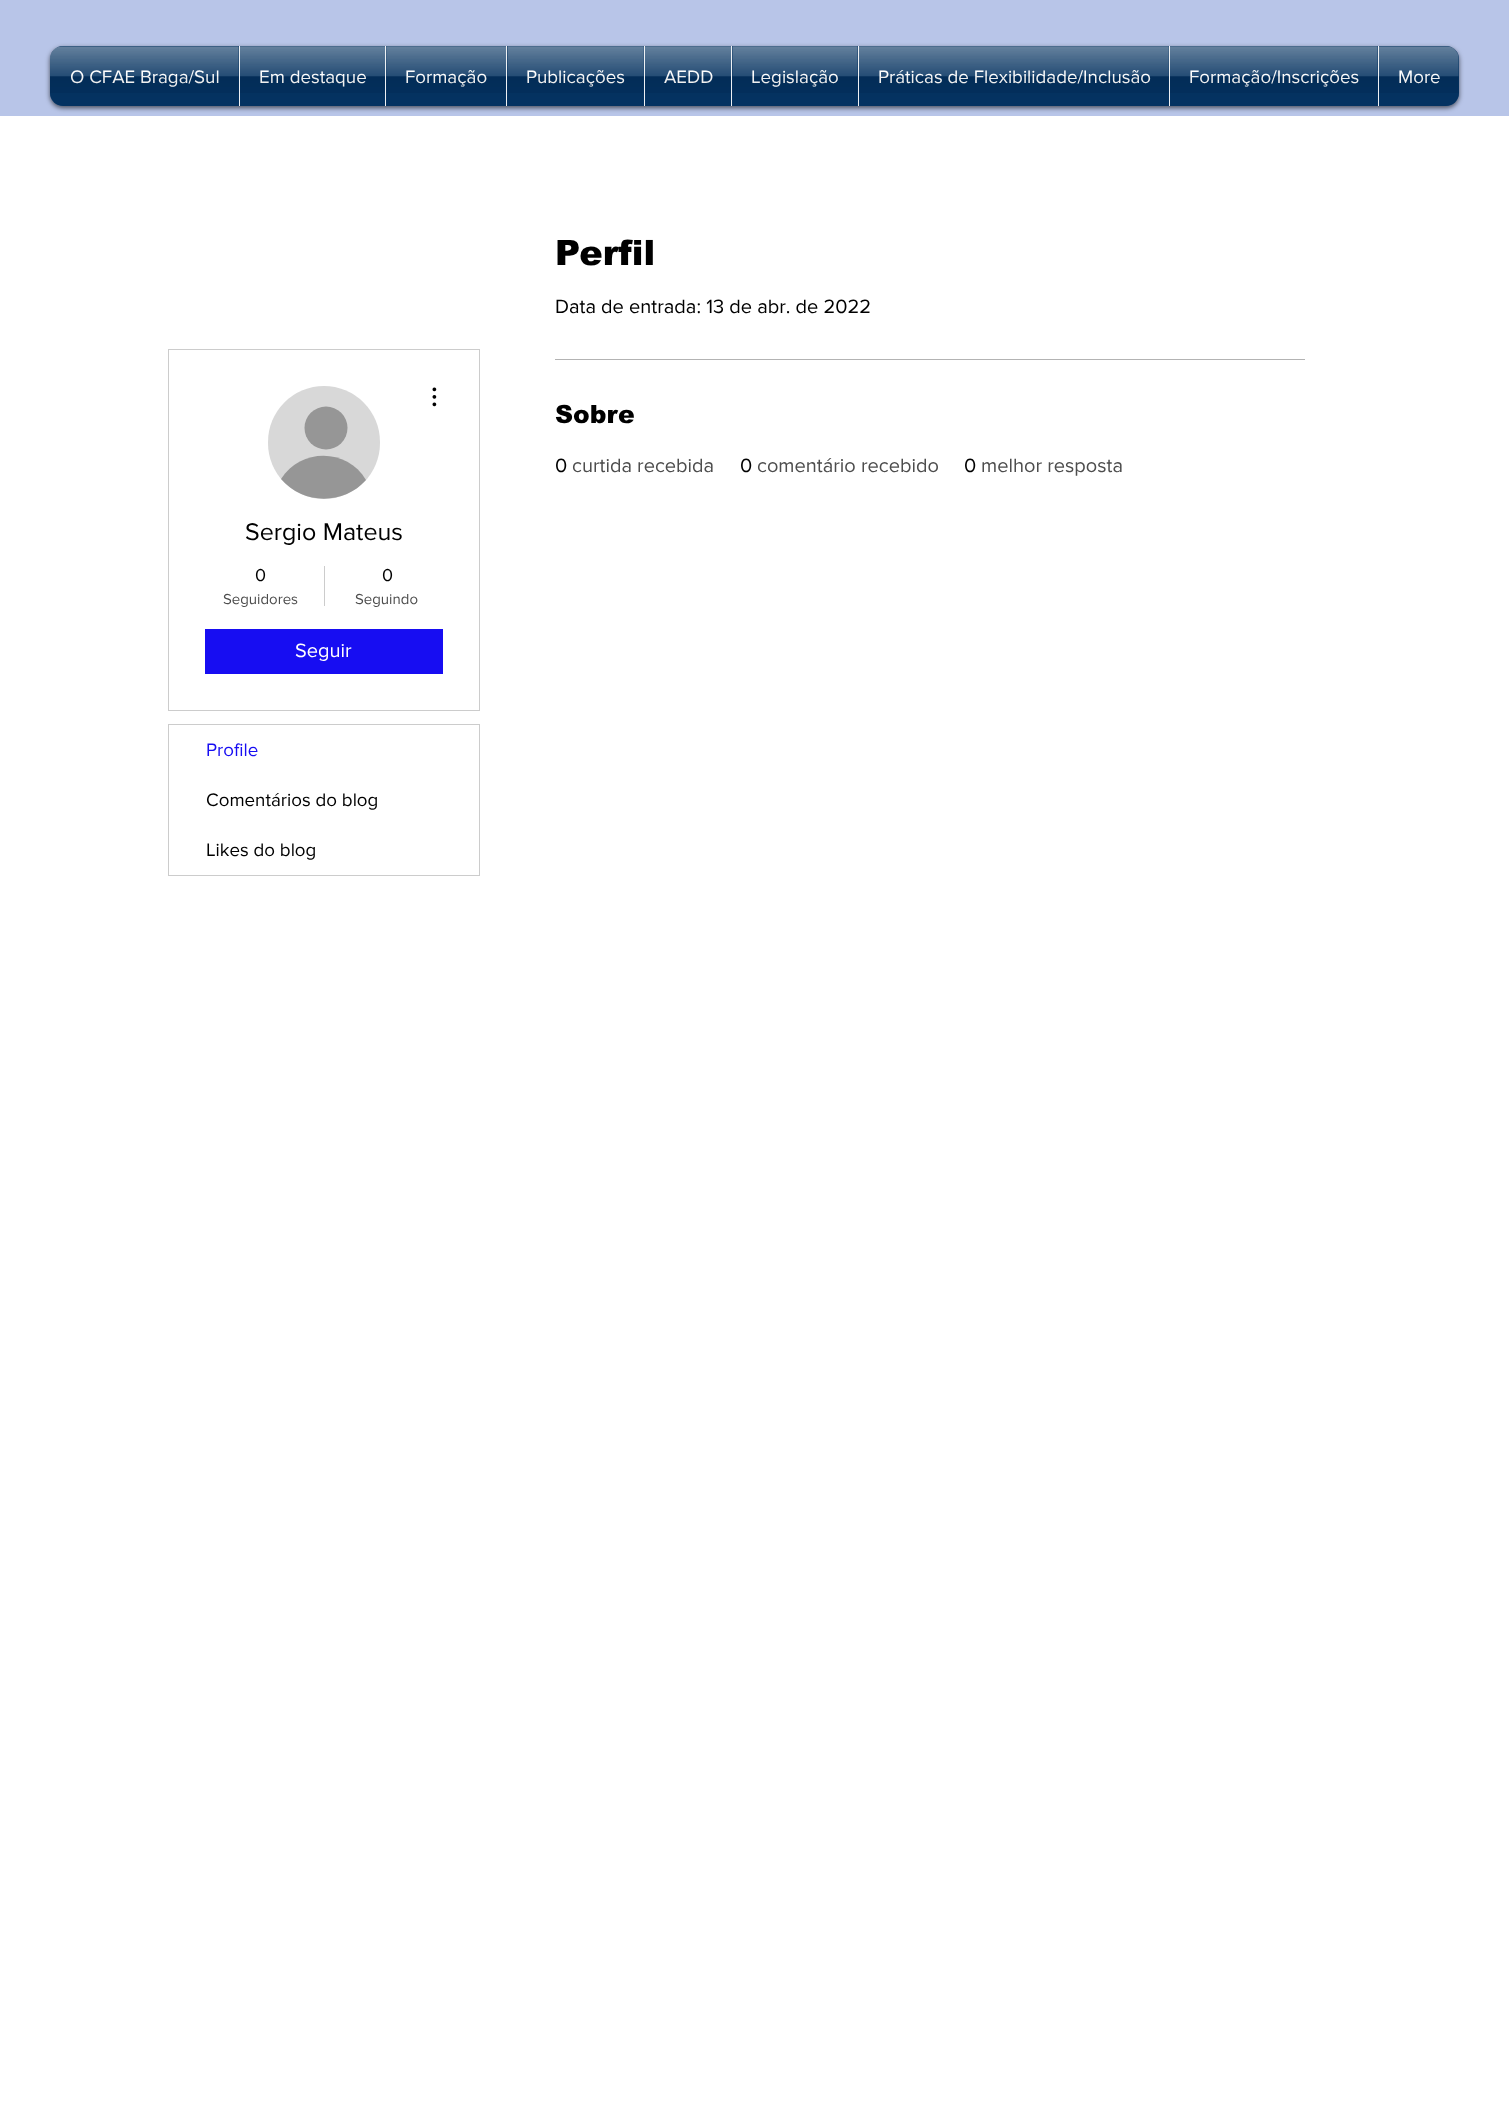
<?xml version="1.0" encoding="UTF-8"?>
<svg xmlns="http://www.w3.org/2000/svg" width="1509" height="2117">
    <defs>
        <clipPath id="clip1"><path d="M 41 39 H 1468 V 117 H 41 Z M 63 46 H 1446 C 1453 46 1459 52 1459 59 V 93 C 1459 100 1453 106 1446 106 H 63 C 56 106 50 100 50 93 V 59 C 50 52 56 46 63 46 Z" clip-rule="evenodd"/></clipPath>
        <filter id="blur1" x="-50%" y="-200%" width="200%" height="500%"><feGaussianBlur stdDeviation="2.5"/></filter>
    </defs>
    <rect width="100%" height="100%" fill="#FFFFFF"/>
    <rect x="0" y="0" width="1509" height="116" fill="#B8C5E8"/>
    <g clip-path="url(#clip1)">
        <rect x="50" y="48" width="1409" height="60" rx="13" fill="#000000" fill-opacity="0.6" filter="url(#blur1)"/>
    </g>
    <rect x="50" y="46" width="1409" height="60" rx="13" fill="#002E5D" fill-opacity="0.84"/>
    <image x="50" y="46" width="1409" height="51" href="img_01.png"/>
    <path d="M 63 46 H 239 V 106 H 63 C 56 106 50 100 50 93 V 59 C 50 52 56 46 63 46 Z" fill="#002E5D" fill-opacity="0.84"/>
    <text x="70" y="83" font-family="'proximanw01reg'" font-size="18.75" fill="#FFFFFF">O CFAE Braga/Sul</text>
    <image x="50" y="46" width="189" height="47" href="img_02.png"/>
    <rect x="239" y="46" width="146" height="60" fill="#002E5D" fill-opacity="0.84"/>
    <rect x="239" y="46" width="1" height="60" fill="#FFFFFF" fill-opacity="0.93"/>
    <text x="259" y="83" font-family="'proximanw01reg'" font-size="18.75" fill="#FFFFFF">Em destaque</text>
    <image x="240" y="46" width="145" height="47" href="img_03.png"/>
    <rect x="385" y="46" width="121" height="60" fill="#002E5D" fill-opacity="0.84"/>
    <rect x="385" y="46" width="1" height="60" fill="#FFFFFF" fill-opacity="0.93"/>
    <text x="405" y="83" font-family="'proximanw01reg'" font-size="18.75" fill="#FFFFFF">Formação</text>
    <image x="386" y="46" width="121" height="47" href="img_04.png"/>
    <rect x="506" y="46" width="138" height="60" fill="#002E5D" fill-opacity="0.84"/>
    <rect x="506" y="46" width="1" height="60" fill="#FFFFFF" fill-opacity="0.93"/>
    <text x="526" y="83" font-family="'proximanw01reg'" font-size="18.75" fill="#FFFFFF">Publicações</text>
    <image x="507" y="46" width="137" height="47" href="img_05.png"/>
    <rect x="644" y="46" width="87" height="60" fill="#002E5D" fill-opacity="0.84"/>
    <rect x="644" y="46" width="1" height="60" fill="#FFFFFF" fill-opacity="0.93"/>
    <text x="664" y="83" font-family="'proximanw01reg'" font-size="18.75" fill="#FFFFFF">AEDD</text>
    <image x="645" y="46" width="87" height="47" href="img_06.png"/>
    <rect x="731" y="46" width="127" height="60" fill="#002E5D" fill-opacity="0.84"/>
    <rect x="731" y="46" width="1" height="60" fill="#FFFFFF" fill-opacity="0.93"/>
    <text x="751" y="83" font-family="'proximanw01reg'" font-size="18.75" fill="#FFFFFF">Legislação</text>
    <image x="732" y="46" width="126" height="47" href="img_07.png"/>
    <rect x="858" y="46" width="311" height="60" fill="#002E5D" fill-opacity="0.84"/>
    <rect x="858" y="46" width="1" height="60" fill="#FFFFFF" fill-opacity="0.93"/>
    <text x="878" y="83" font-family="'proximanw01reg'" font-size="18.75" fill="#FFFFFF">Práticas de Flexibilidade/Inclusão</text>
    <image x="859" y="46" width="310" height="47" href="img_08.png"/>
    <rect x="1169" y="46" width="209" height="60" fill="#002E5D" fill-opacity="0.84"/>
    <rect x="1169" y="46" width="1" height="60" fill="#FFFFFF" fill-opacity="0.93"/>
    <text x="1189" y="83" font-family="'proximanw01reg'" font-size="18.75" fill="#FFFFFF">Formação/Inscrições</text>
    <image x="1170" y="46" width="208" height="47" href="img_09.png"/>
    <path d="M 1378 46 H 1446 C 1453 46 1459 52 1459 59 V 93 C 1459 100 1453 106 1446 106 H 1378 Z" fill="#002E5D" fill-opacity="0.84"/>
    <rect x="1378" y="46" width="1" height="60" fill="#FFFFFF" fill-opacity="0.93"/>
    <text x="1398" y="83" font-family="'proximanw01reg'" font-size="18.75" fill="#FFFFFF">More</text>
    <image x="1379" y="46" width="80" height="47" href="img_10.png"/>
    <text x="555" y="265" font-family="arial" font-size="35" font-weight="900" fill="#000000">Perfil</text>
    <text x="555" y="313" font-family="'proximanw01reg'" font-size="20" fill="#000000">Data de entrada: 13 de abr. de 2022</text>
    <rect x="555" y="359" width="750" height="1" fill="#B3B3B3"/>
    <text x="555" y="423" font-family="arial" font-size="25" font-weight="900" fill="#000000">Sobre</text>
    <text x="555" y="472" font-family="'proximanw01reg'" font-size="20" fill="#000000">0</text>
    <text x="572" y="472" font-family="'proximanw01reg'" font-size="20" fill="#4D4D4D">curtida recebida</text>
    <text x="740" y="472" font-family="'proximanw01reg'" font-size="20" fill="#000000">0</text>
    <text x="757" y="472" font-family="'proximanw01reg'" font-size="20" fill="#4D4D4D">comentário recebido</text>
    <text x="964" y="472" font-family="'proximanw01reg'" font-size="20" fill="#000000">0</text>
    <text x="981" y="472" font-family="'proximanw01reg'" font-size="20" fill="#4D4D4D">melhor resposta</text>
    <rect x="168.5" y="349.5" width="311" height="361" fill="none" stroke="#CCCCCC"/>
    <rect x="268" y="386" width="112" height="113" rx="56" fill="#D8D8D8"/>
    <circle cx="326" cy="428" r="21.5" fill="#969696"/>
    <path d="M 366 480 C 344 505 303 505 281 479 C 301 448 347 448 366 480 Z" fill="#969696"/>
    <image x="432" y="387" width="5" height="20" href="img_11.png"/>
    <text x="245" y="540" font-family="'proximanw01reg'" font-size="25" fill="#000000">Sergio Mateus</text>
    <text x="255" y="581" font-family="'proximanw01reg'" font-size="18" fill="#000000">0</text>
    <text x="223" y="604" font-family="'proximanw01reg'" font-size="15" fill="#4D4D4D">Seguidores</text>
    <rect x="324" y="566" width="1" height="40" fill="#CCCCCC"/>
    <text x="382" y="581" font-family="'proximanw01reg'" font-size="18" fill="#000000">0</text>
    <text x="355" y="604" font-family="'proximanw01reg'" font-size="15" fill="#4D4D4D">Seguindo</text>
    <rect x="205" y="629" width="238" height="45" fill="#170DF2"/>
    <text x="295" y="657" font-family="'proximanw01reg'" font-size="20" fill="#FFFFFF">Seguir</text>
    <rect x="168.5" y="724.5" width="311" height="151" fill="none" stroke="#CCCCCC"/>
    <text x="206" y="756" font-family="'proximanw01reg'" font-size="18.75" fill="#170DF2">Profile</text>
    <text x="206" y="806" font-family="'proximanw01reg'" font-size="18.75" fill="#000000">Comentários do blog</text>
    <text x="206" y="856" font-family="'proximanw01reg'" font-size="18.75" fill="#000000">Likes do blog</text>
</svg>
